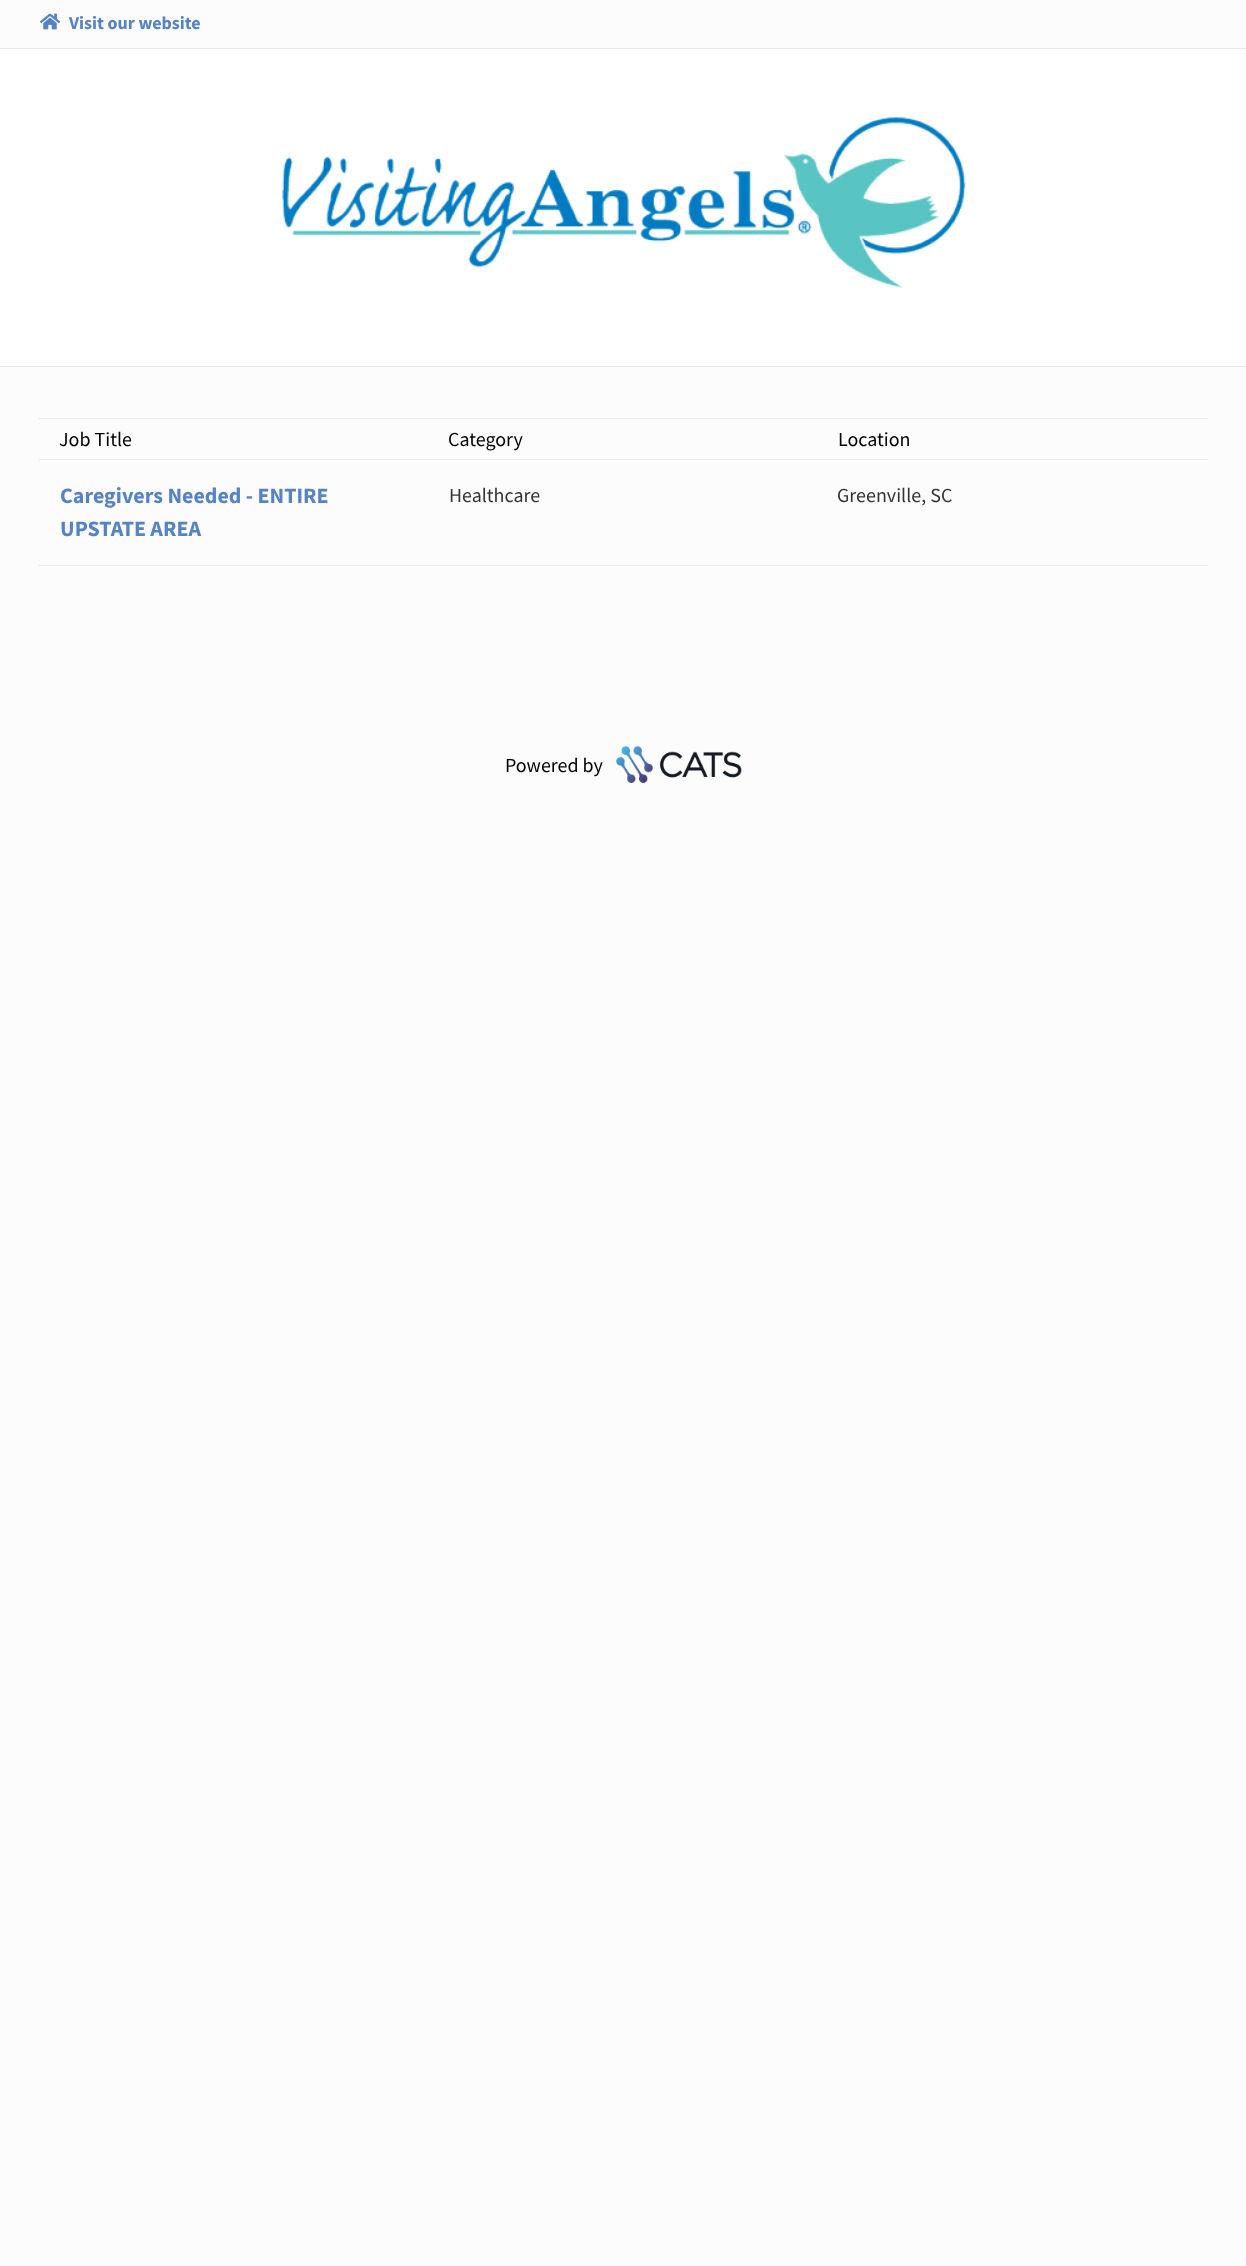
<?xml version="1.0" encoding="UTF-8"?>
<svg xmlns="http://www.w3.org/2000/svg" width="1246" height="2266">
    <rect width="100%" height="100%" fill="#FCFCFD"/>
    <rect x="0" y="48" width="1246" height="1" fill="#E7E7EF"/>
    <image x="39" y="13" width="22" height="17" href="img_01.png"/>
    <text x="69" y="29" font-family="Source Sans Pro" font-size="18" font-weight="700" fill="#5682C6">Visit our website</text>
    <rect x="0" y="49" width="1246" height="317" fill="#FFFFFF"/>
    <image x="281" y="116" width="685" height="173" href="img_02.png"/>
    <rect x="0" y="366" width="1246" height="1" fill="#E7E7EF"/>
    <rect x="39" y="418" width="1169" height="1" fill="#E7E7EF"/>
    <text x="59" y="446" font-family="Source Sans Pro" font-size="20" fill="#000000">Job Title</text>
    <text x="448" y="446" font-family="Source Sans Pro" font-size="20" fill="#000000">Category</text>
    <text x="838" y="446" font-family="Source Sans Pro" font-size="20" fill="#000000">Location</text>
    <rect x="39" y="459" width="1169" height="1" fill="#E7E7EF"/>
    <rect x="39" y="565" width="1169" height="1" fill="#E7E7EF"/>
    <text font-family="Source Sans Pro" font-size="22" font-weight="700" fill="#5682C6">
        <tspan x="60" y="503">Caregivers Needed - ENTIRE</tspan>
        <tspan x="60" y="536">UPSTATE AREA</tspan>
    </text>
    <text x="449" y="502" font-family="Source Sans Pro" font-size="20" fill="#333333">Healthcare</text>
    <text x="837" y="502" font-family="Source Sans Pro" font-size="20" fill="#333333">Greenville, SC</text>
    <text x="505" y="772" font-family="Source Sans Pro" font-size="20" fill="#000000">Powered by</text>
    <image x="616" y="746" width="126" height="37" href="img_03.png"/>
</svg>
